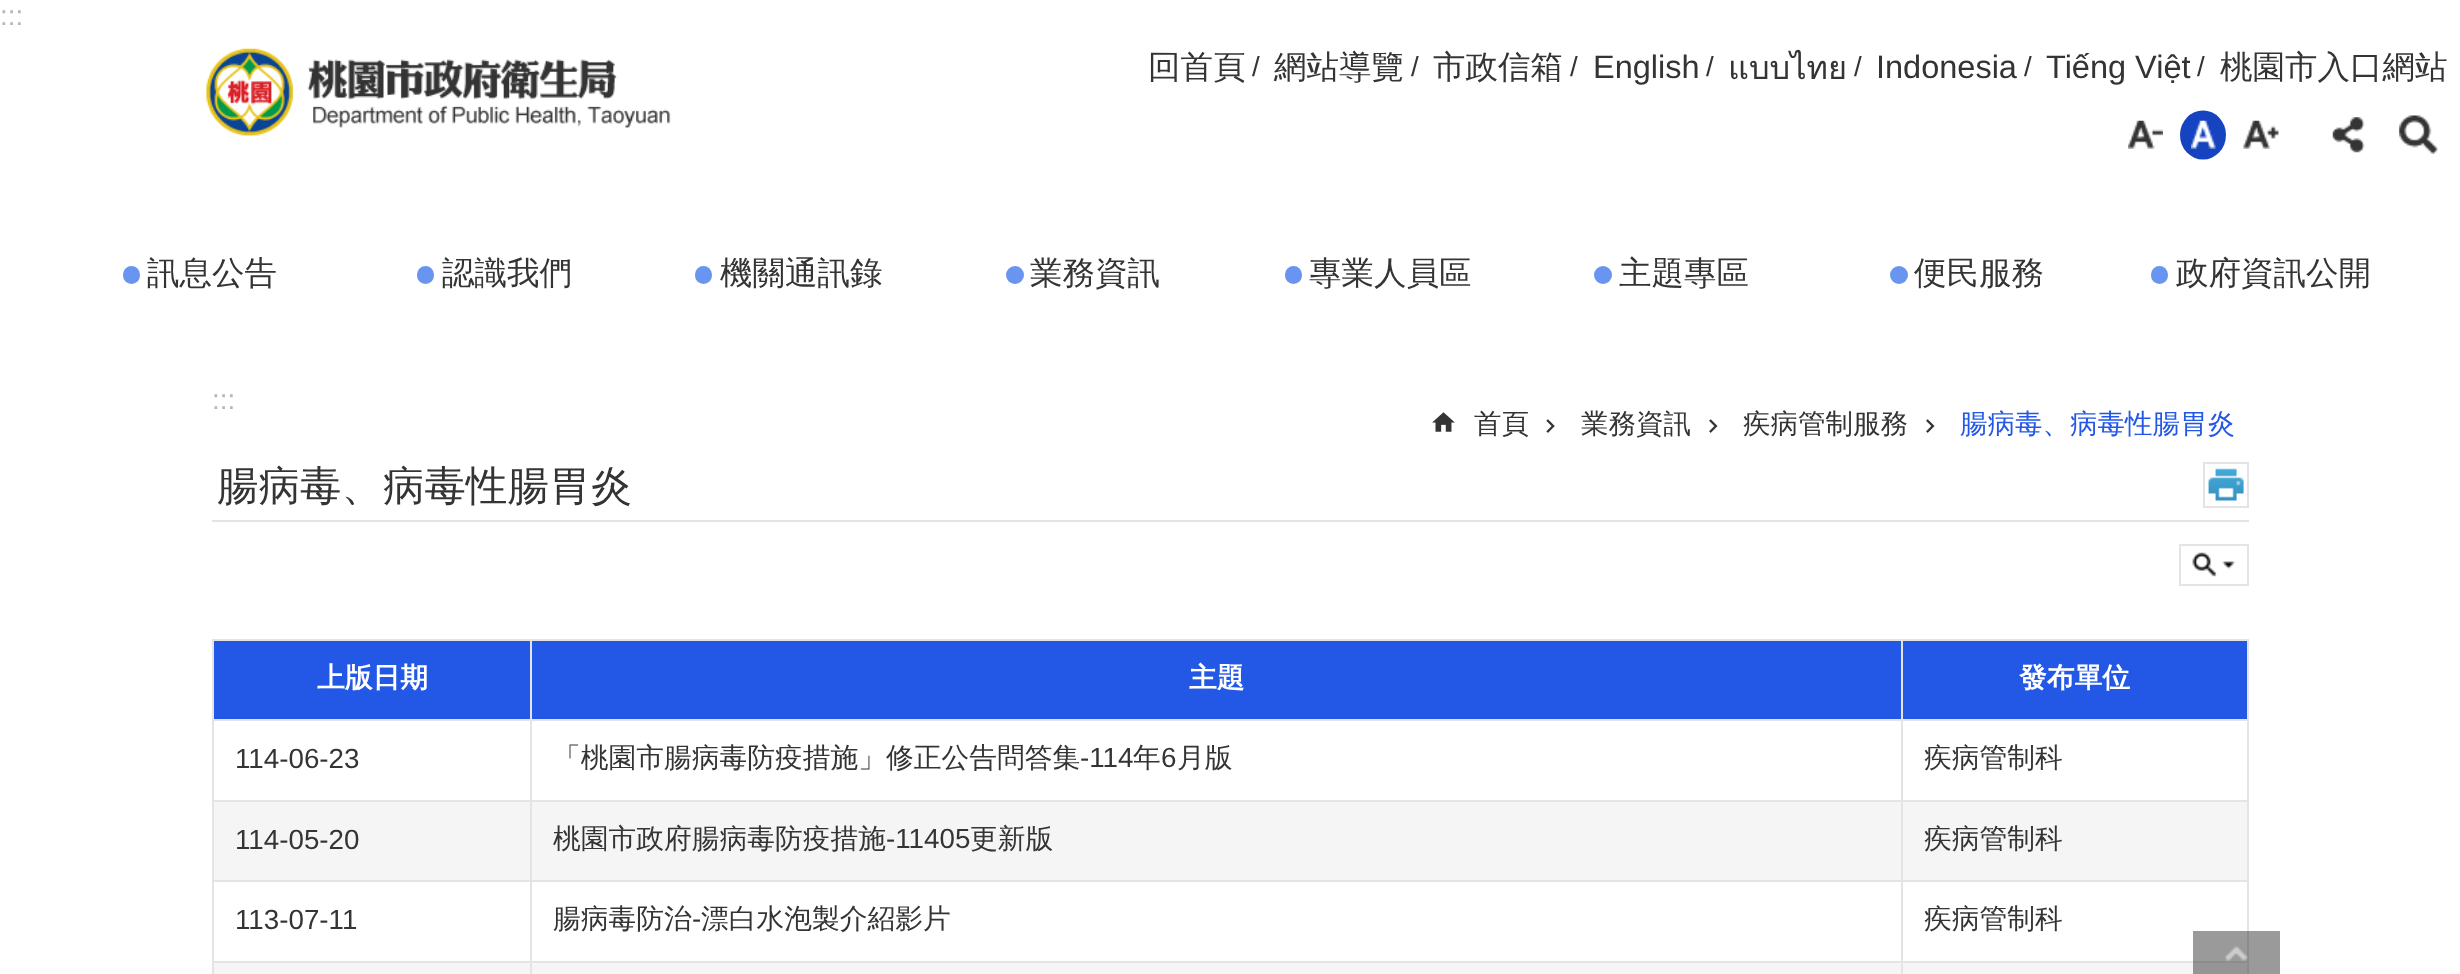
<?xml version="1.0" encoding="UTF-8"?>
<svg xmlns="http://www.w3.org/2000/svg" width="2460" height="974">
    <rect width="100%" height="100%" fill="#FFFFFF"/>
    <rect x="2193" y="931" width="87" height="43" fill="#9A9A9A"/>
    <text x="0" y="25" font-family="Liberation Sans" font-size="27.75" fill="#B6B6B6">:::</text>
    <image x="206" y="48" width="465" height="88" href="img_01.png"/>
    <text x="1148" y="78" font-family="WenQuanYi Zen Hei" font-size="32.5" font-weight="500" fill="#343434">回首頁</text>
    <text x="1252" y="76" font-family="Liberation Sans" font-size="27.75" fill="#343434">/</text>
    <text x="1274" y="78" font-family="WenQuanYi Zen Hei" font-size="32.5" font-weight="500" fill="#343434">網站導覽</text>
    <text x="1411" y="76" font-family="Liberation Sans" font-size="27.75" fill="#343434">/</text>
    <text x="1433" y="78" font-family="WenQuanYi Zen Hei" font-size="32.5" font-weight="500" fill="#343434">市政信箱</text>
    <text x="1570" y="76" font-family="Liberation Sans" font-size="27.75" fill="#343434">/</text>
    <text x="1593" y="78" font-family="Liberation Sans" font-size="32.5" fill="#343434">English</text>
    <text x="1706" y="76" font-family="Liberation Sans" font-size="27.75" fill="#343434">/</text>
    <text x="1728" y="79" font-family="Loma" font-size="32.5" fill="#343434">แบบไทย</text>
    <text x="1854" y="76" font-family="Liberation Sans" font-size="27.75" fill="#343434">/</text>
    <text x="1876" y="78" font-family="Liberation Sans" font-size="32.5" fill="#343434">Indonesia</text>
    <text x="2024" y="76" font-family="Liberation Sans" font-size="27.75" fill="#343434">/</text>
    <text x="2046" y="78" font-family="Liberation Sans" font-size="32.5" fill="#343434">Tiếng Việt</text>
    <text x="2197" y="76" font-family="Liberation Sans" font-size="27.75" fill="#343434">/</text>
    <text x="2220" y="78" font-family="WenQuanYi Zen Hei" font-size="32.5" font-weight="500" fill="#343434">桃園市入口網站</text>
    <image x="2128" y="120" width="35" height="29" href="img_02.png"/>
    <ellipse cx="2203" cy="135" rx="23" ry="24.5" fill="#1643C0"/>
    <image x="2191" y="120" width="25" height="29" href="img_03.png"/>
    <image x="2243" y="120" width="36" height="29" href="img_04.png"/>
    <image x="2332" y="117" width="33" height="36" href="img_05.png"/>
    <image x="2399" y="115" width="39" height="39" href="img_06.png"/>
    <rect x="123" y="266" width="17" height="18" rx="8.5" fill="#6995F1"/>
    <text x="147" y="284" font-family="WenQuanYi Zen Hei" font-size="32.5" font-weight="500" fill="#343434">訊息公告</text>
    <rect x="417" y="266" width="17" height="18" rx="8.5" fill="#6995F1"/>
    <text x="442" y="284" font-family="WenQuanYi Zen Hei" font-size="32.5" font-weight="500" fill="#343434">認識我們</text>
    <rect x="695" y="266" width="17" height="18" rx="8.5" fill="#6995F1"/>
    <text x="720" y="284" font-family="WenQuanYi Zen Hei" font-size="32.5" font-weight="500" fill="#343434">機關通訊錄</text>
    <circle cx="1015" cy="275" r="9" fill="#6995F1"/>
    <text x="1030" y="284" font-family="WenQuanYi Zen Hei" font-size="32.5" font-weight="500" fill="#343434">業務資訊</text>
    <rect x="1285" y="266" width="17" height="18" rx="8.5" fill="#6995F1"/>
    <text x="1309" y="284" font-family="WenQuanYi Zen Hei" font-size="32.5" font-weight="500" fill="#343434">專業人員區</text>
    <circle cx="1603" cy="275" r="9" fill="#6995F1"/>
    <text x="1619" y="284" font-family="WenQuanYi Zen Hei" font-size="32.5" font-weight="500" fill="#343434">主題專區</text>
    <circle cx="1899" cy="275" r="9" fill="#6995F1"/>
    <text x="1914" y="284" font-family="WenQuanYi Zen Hei" font-size="32.5" font-weight="500" fill="#343434">便民服務</text>
    <rect x="2151" y="266" width="17" height="18" rx="8.5" fill="#6995F1"/>
    <text x="2176" y="284" font-family="WenQuanYi Zen Hei" font-size="32.5" font-weight="500" fill="#343434">政府資訊公開</text>
    <text x="212" y="409" font-family="Liberation Sans" font-size="27.75" fill="#B6B6B6">:::</text>
    <image x="1432" y="412" width="23" height="20" href="img_07.png"/>
    <text x="1474" y="433" font-family="WenQuanYi Zen Hei" font-size="27.5" font-weight="500" fill="#343434">首頁</text>
    <image x="1546" y="419" width="9" height="14" href="img_08.png"/>
    <text x="1581" y="433" font-family="WenQuanYi Zen Hei" font-size="27.5" font-weight="500" fill="#343434">業務資訊</text>
    <image x="1709" y="419" width="9" height="14" href="img_09.png"/>
    <text x="1743" y="433" font-family="WenQuanYi Zen Hei" font-size="27.5" font-weight="500" fill="#343434">疾病管制服務</text>
    <image x="1926" y="419" width="9" height="14" href="img_09.png"/>
    <text x="1960" y="433" font-family="WenQuanYi Zen Hei" font-size="27.5" font-weight="500" fill="#2357E6">腸病毒、病毒性腸胃炎</text>
    <rect x="212" y="520" width="2037" height="2" fill="#E4E4E4"/>
    <text x="217" y="500" font-family="WenQuanYi Zen Hei" font-size="41.5" font-weight="500" fill="#343434">腸病毒、病毒性腸胃炎</text>
    <image x="2208" y="468" width="36" height="33" href="img_10.png"/>
    <rect x="2204" y="463" width="44" height="44" fill="none" stroke="#E4E4E4" stroke-width="2"/>
    <image x="2192" y="552" width="44" height="25" href="img_11.png"/>
    <rect x="2180" y="545" width="68" height="40" fill="none" stroke="#E4E4E4" stroke-width="2"/>
    <rect x="214" y="641" width="316" height="78" fill="#2357E6"/>
    <rect x="1901" y="639" width="348" height="2" fill="#E4E4E4"/>
    <rect x="1901" y="719" width="348" height="2" fill="#E4E4E4"/>
    <rect x="1901" y="800" width="348" height="2" fill="#E4E4E4"/>
    <rect x="214" y="802" width="2033" height="78" fill="#F5F5F5"/>
    <rect x="1901" y="880" width="348" height="2" fill="#E4E4E4"/>
    <rect x="1901" y="961" width="292" height="2" fill="#E4E4E4"/>
    <rect x="214" y="963" width="1979" height="11" fill="#F5F5F5"/>
    <rect x="1901" y="961" width="2" height="13" fill="#E4E4E4"/>
    <rect x="530" y="961" width="1372" height="2" fill="#E4E4E4"/>
    <rect x="1901" y="880" width="2" height="83" fill="#E4E4E4"/>
    <rect x="530" y="880" width="1372" height="2" fill="#E4E4E4"/>
    <rect x="1901" y="800" width="2" height="82" fill="#E4E4E4"/>
    <rect x="530" y="800" width="1372" height="2" fill="#E4E4E4"/>
    <rect x="1901" y="719" width="2" height="83" fill="#E4E4E4"/>
    <rect x="530" y="719" width="1372" height="2" fill="#E4E4E4"/>
    <rect x="1901" y="639" width="2" height="82" fill="#E4E4E4"/>
    <rect x="530" y="639" width="1372" height="2" fill="#E4E4E4"/>
    <rect x="530" y="961" width="2" height="13" fill="#E4E4E4"/>
    <rect x="212" y="961" width="320" height="2" fill="#E4E4E4"/>
    <rect x="530" y="880" width="2" height="83" fill="#E4E4E4"/>
    <rect x="212" y="880" width="320" height="2" fill="#E4E4E4"/>
    <rect x="530" y="800" width="2" height="82" fill="#E4E4E4"/>
    <rect x="212" y="800" width="320" height="2" fill="#E4E4E4"/>
    <rect x="530" y="719" width="2" height="83" fill="#E4E4E4"/>
    <rect x="212" y="719" width="320" height="2" fill="#E4E4E4"/>
    <rect x="530" y="639" width="2" height="82" fill="#E4E4E4"/>
    <rect x="212" y="639" width="320" height="2" fill="#E4E4E4"/>
    <rect x="212" y="961" width="2" height="13" fill="#E4E4E4"/>
    <rect x="212" y="880" width="2" height="83" fill="#E4E4E4"/>
    <rect x="212" y="800" width="2" height="82" fill="#E4E4E4"/>
    <rect x="212" y="719" width="2" height="83" fill="#E4E4E4"/>
    <rect x="212" y="639" width="2" height="82" fill="#E4E4E4"/>
    <text x="317" y="687" font-family="WenQuanYi Zen Hei" font-size="27.75" font-weight="700" fill="#FFFFFF">上版日期</text>
    <rect x="532" y="641" width="1369" height="78" fill="#2357E6"/>
    <text x="1189" y="687" font-family="WenQuanYi Zen Hei" font-size="27.75" font-weight="700" fill="#FFFFFF">主題</text>
    <rect x="1903" y="641" width="344" height="78" fill="#2357E6"/>
    <rect x="2247" y="880" width="2" height="51" fill="#E4E4E4"/>
    <rect x="2247" y="800" width="2" height="82" fill="#E4E4E4"/>
    <rect x="2247" y="719" width="2" height="83" fill="#E4E4E4"/>
    <rect x="2247" y="639" width="2" height="82" fill="#E4E4E4"/>
    <text x="2019" y="687" font-family="WenQuanYi Zen Hei" font-size="27.75" font-weight="700" fill="#FFFFFF">發布單位</text>
    <text x="235" y="768" font-family="Liberation Sans" font-size="27.75" fill="#343434">114-06-23</text>
    <text x="553" y="767" font-family="WenQuanYi Zen Hei" font-size="27.75" font-weight="500" fill="#343434">「桃園市腸病毒防疫措施」修正公告問答集</text>
    <text x="1080" y="767" font-family="Liberation Sans" font-size="27.75" fill="#343434">-114</text>
    <text x="1133" y="767" font-family="WenQuanYi Zen Hei" font-size="27.75" font-weight="500" fill="#343434">年</text>
    <text x="1161" y="767" font-family="Liberation Sans" font-size="27.75" fill="#343434">6</text>
    <text x="1177" y="767" font-family="WenQuanYi Zen Hei" font-size="27.75" font-weight="500" fill="#343434">月版</text>
    <text x="1924" y="767" font-family="WenQuanYi Zen Hei" font-size="27.75" font-weight="500" fill="#343434">疾病管制科</text>
    <text x="235" y="849" font-family="Liberation Sans" font-size="27.75" fill="#343434">114-05-20</text>
    <text x="553" y="848" font-family="WenQuanYi Zen Hei" font-size="27.75" font-weight="500" fill="#343434">桃園市政府腸病毒防疫措施</text>
    <text x="886" y="848" font-family="Liberation Sans" font-size="27.75" fill="#343434">-11405</text>
    <text x="970" y="848" font-family="WenQuanYi Zen Hei" font-size="27.75" font-weight="500" fill="#343434">更新版</text>
    <text x="1924" y="848" font-family="WenQuanYi Zen Hei" font-size="27.75" font-weight="500" fill="#343434">疾病管制科</text>
    <text x="235" y="929" font-family="Liberation Sans" font-size="27.75" fill="#343434">113-07-11</text>
    <text x="553" y="928" font-family="WenQuanYi Zen Hei" font-size="27.75" font-weight="500" fill="#343434">腸病毒防治</text>
    <text x="692" y="928" font-family="Liberation Sans" font-size="27.75" fill="#343434">-</text>
    <text x="701" y="928" font-family="WenQuanYi Zen Hei" font-size="27.75" font-weight="500" fill="#343434">漂白水泡製介紹影片</text>
    <text x="1924" y="928" font-family="WenQuanYi Zen Hei" font-size="27.75" font-weight="500" fill="#343434">疾病管制科</text>
    <rect x="2193" y="963" width="54" height="11" fill="#959595"/>
    <rect x="2193" y="961" width="56" height="2" fill="#8C8C8C"/>
    <rect x="2247" y="931" width="2" height="43" fill="#8C8C8C"/>
    <image x="2225" y="946" width="23" height="16" href="img_12.png"/>
</svg>
